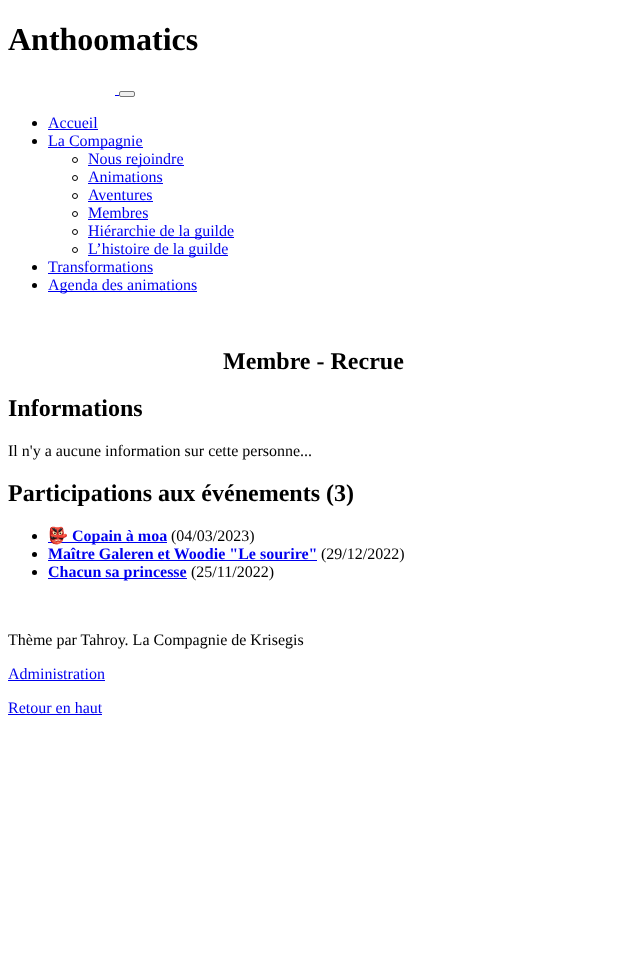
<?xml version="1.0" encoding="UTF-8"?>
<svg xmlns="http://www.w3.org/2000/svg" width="627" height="979">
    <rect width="100%" height="100%" fill="#FFFFFF"/>
    <text x="8" y="50" font-family="Liberation Serif" font-size="32" font-weight="700" fill="#000000">Anthoomatics</text>
    <rect x="115" y="95" width="4" height="1" fill="#0000EE"/>
    <rect x="119.5" y="91.5" width="15" height="5" rx="1.5" fill="#EFEFEF" stroke="#767676"/>
    <circle cx="34.5" cy="123.5" r="2.5" fill="#000000"/>
    <text x="48" y="128" font-family="Liberation Serif" font-size="16" fill="#0000EE">Accueil</text>
    <rect x="48" y="129" width="50" height="1" fill="#0000EE"/>
    <circle cx="34.5" cy="141.5" r="2.5" fill="#000000"/>
    <rect x="48" y="147" width="95" height="1" fill="#0000EE"/>
    <text x="48" y="146" font-family="Liberation Serif" font-size="16" fill="#0000EE">La Compagnie</text>
    <circle cx="75" cy="160" r="2.5" fill="none" stroke="#000000"/>
    <rect x="88" y="165" width="96" height="1" fill="#0000EE"/>
    <text x="88" y="164" font-family="Liberation Serif" font-size="16" fill="#0000EE">Nous rejoindre</text>
    <circle cx="75" cy="178" r="2.5" fill="none" stroke="#000000"/>
    <text x="88" y="182" font-family="Liberation Serif" font-size="16" fill="#0000EE">Animations</text>
    <rect x="88" y="183" width="75" height="1" fill="#0000EE"/>
    <circle cx="75" cy="196" r="2.5" fill="none" stroke="#000000"/>
    <text x="88" y="200" font-family="Liberation Serif" font-size="16" fill="#0000EE">Aventures</text>
    <rect x="88" y="201" width="65" height="1" fill="#0000EE"/>
    <circle cx="75" cy="214" r="2.5" fill="none" stroke="#000000"/>
    <text x="88" y="218" font-family="Liberation Serif" font-size="16" fill="#0000EE">Membres</text>
    <rect x="88" y="219" width="60" height="1" fill="#0000EE"/>
    <circle cx="75" cy="232" r="2.5" fill="none" stroke="#000000"/>
    <rect x="88" y="237" width="146" height="1" fill="#0000EE"/>
    <text x="88" y="236" font-family="Liberation Serif" font-size="16" fill="#0000EE">Hiérarchie de la guilde</text>
    <circle cx="75" cy="250" r="2.5" fill="none" stroke="#000000"/>
    <rect x="88" y="255" width="140" height="1" fill="#0000EE"/>
    <text x="88" y="254" font-family="Liberation Serif" font-size="16" fill="#0000EE">L’histoire de la guilde</text>
    <circle cx="34.5" cy="267.5" r="2.5" fill="#000000"/>
    <text x="48" y="272" font-family="Liberation Serif" font-size="16" fill="#0000EE">Transformations</text>
    <rect x="48" y="273" width="105" height="1" fill="#0000EE"/>
    <circle cx="34.5" cy="285.5" r="2.5" fill="#000000"/>
    <rect x="48" y="291" width="149" height="1" fill="#0000EE"/>
    <text x="48" y="290" font-family="Liberation Serif" font-size="16" fill="#0000EE">Agenda des animations</text>
    <text x="223" y="369" font-family="Liberation Serif" font-size="24" font-weight="700" fill="#000000">Membre - Recrue</text>
    <text x="8" y="416" font-family="Liberation Serif" font-size="24" font-weight="700" fill="#000000">Informations</text>
    <text x="8" y="456" font-family="Liberation Serif" font-size="16" fill="#000000">Il n'y a aucune information sur cette personne...</text>
    <text x="8" y="501" font-family="Liberation Serif" font-size="24" font-weight="700" fill="#000000">Participations aux événements (3)</text>
    <circle cx="34.5" cy="536.5" r="2.5" fill="#000000"/>
    <rect x="48" y="542" width="119" height="1" fill="#0000EE"/>
    <text x="48" y="541" font-family="Noto Color Emoji" font-size="16" font-weight="700" fill="#0000EE">👺</text>
    <text x="72" y="541" font-family="Liberation Serif" font-size="16" font-weight="700" fill="#0000EE">Copain à moa</text>
    <text x="171" y="541" font-family="Liberation Serif" font-size="16" fill="#000000">(04/03/2023)</text>
    <circle cx="34.5" cy="554.5" r="2.5" fill="#000000"/>
    <text x="48" y="559" font-family="Liberation Serif" font-size="16" font-weight="700" fill="#0000EE">Maître Galeren et Woodie "Le sourire"</text>
    <rect x="48" y="560" width="269" height="1" fill="#0000EE"/>
    <text x="321" y="559" font-family="Liberation Serif" font-size="16" fill="#000000">(29/12/2022)</text>
    <circle cx="34.5" cy="572.5" r="2.5" fill="#000000"/>
    <rect x="48" y="578" width="139" height="1" fill="#0000EE"/>
    <text x="48" y="577" font-family="Liberation Serif" font-size="16" font-weight="700" fill="#0000EE">Chacun sa princesse</text>
    <text x="191" y="577" font-family="Liberation Serif" font-size="16" fill="#000000">(25/11/2022)</text>
    <text x="8" y="645" font-family="Liberation Serif" font-size="16" fill="#000000">Thème par Tahroy. La Compagnie de Krisegis</text>
    <text x="8" y="679" font-family="Liberation Serif" font-size="16" fill="#0000EE">Administration</text>
    <rect x="8" y="680" width="97" height="1" fill="#0000EE"/>
    <text x="8" y="713" font-family="Liberation Serif" font-size="16" fill="#0000EE">Retour en haut</text>
    <rect x="8" y="714" width="94" height="1" fill="#0000EE"/>
</svg>
